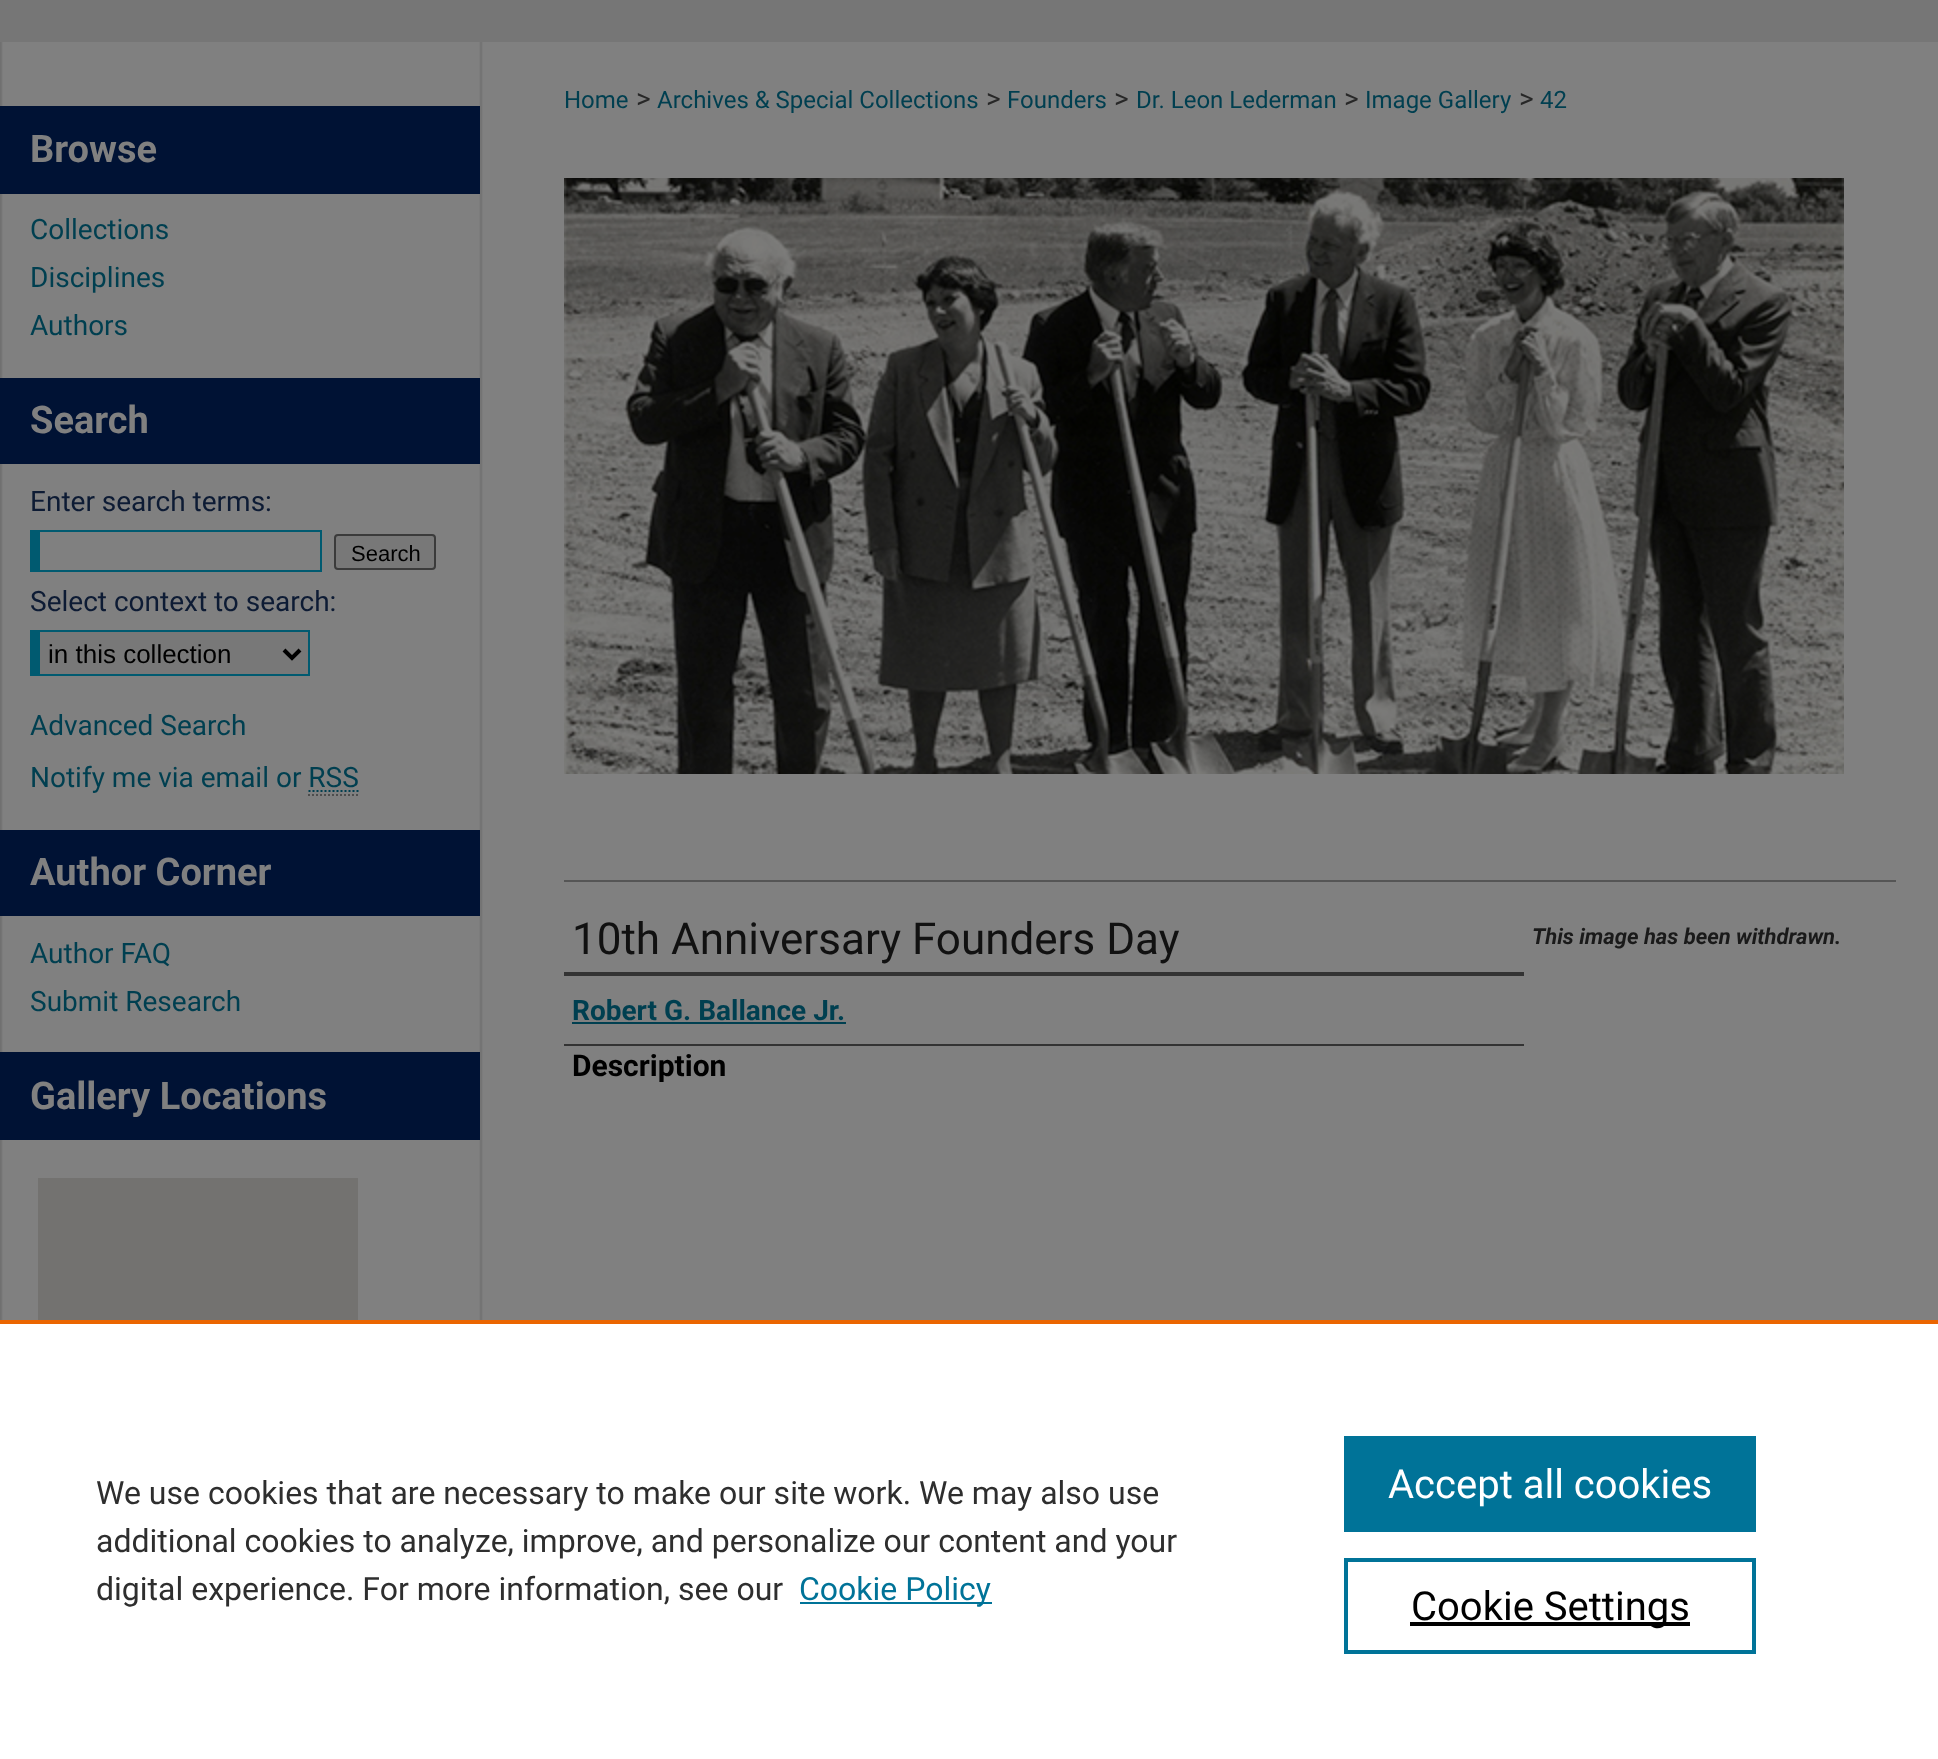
<?xml version="1.0" encoding="UTF-8"?>
<svg xmlns="http://www.w3.org/2000/svg" width="1938" height="1759">
    <rect width="100%" height="100%" fill="#808080"/>
    <rect x="0" y="0" width="1938" height="42" fill="#767676"/>
    <image x="0" y="42" width="483" height="1278" href="img_01.png"/>
    <rect x="0" y="106" width="480" height="88" fill="#001234"/>
    <text x="30" y="162" font-family="Roboto" font-size="38" font-weight="700" fill="#808080">Browse</text>
    <text font-family="Roboto" font-size="28" fill="#003F50">
        <tspan x="30" y="239">Collections</tspan>
        <tspan x="30" y="287">Disciplines</tspan>
        <tspan x="30" y="335">Authors</tspan>
    </text>
    <rect x="0" y="378" width="480" height="86" fill="#001234"/>
    <text x="30" y="433" font-family="Roboto" font-size="38" font-weight="700" fill="#808080">Search</text>
    <text x="30" y="511" font-family="Roboto" font-size="28" fill="#0D1B34">Enter search terms:</text>
    <rect x="40" y="530" width="282" height="2" fill="#005A70"/>
    <rect x="320" y="530" width="2" height="42" fill="#005A70"/>
    <rect x="40" y="570" width="282" height="2" fill="#005A70"/>
    <rect x="30" y="530" width="10" height="42" fill="#005A70"/>
    <rect x="335" y="535" width="100" height="34" rx="3" fill="#787878" stroke="#3B3B3B" stroke-width="2"/>
    <text x="351" y="561" font-family="Liberation Sans" font-size="22" fill="#000000">Search</text>
    <text x="30" y="611" font-family="Roboto" font-size="28" fill="#0D1B34">Select context to search:</text>
    <rect x="40" y="632" width="268" height="42" fill="#787878"/>
    <rect x="40" y="630" width="270" height="2" fill="#005A70"/>
    <rect x="308" y="630" width="2" height="46" fill="#005A70"/>
    <rect x="40" y="674" width="270" height="2" fill="#005A70"/>
    <rect x="30" y="630" width="10" height="46" fill="#005A70"/>
    <path d="M 284 650 L 292 658 L 300 650" fill="none" stroke="#000000" stroke-width="4"/>
    <text x="48" y="663" font-family="Liberation Sans" font-size="26" fill="#000000">in this collection</text>
    <text font-family="Roboto" font-size="28" fill="#003F50">
        <tspan x="30" y="735">Advanced Search</tspan>
        <tspan x="30" y="787">Notify me via email or RSS</tspan>
    </text>
    <path d="M 308.5 791 H 359" fill="none" stroke="#003F50" stroke-width="2" stroke-dasharray="2 2"/>
    <path d="M 308 795 H 358" fill="none" stroke="#4D4D4D" stroke-width="2" stroke-dasharray="2 2"/>
    <rect x="0" y="830" width="480" height="86" fill="#001234"/>
    <text x="30" y="885" font-family="Roboto" font-size="38" font-weight="700" fill="#808080">Author Corner</text>
    <text font-family="Roboto" font-size="28" fill="#003F50">
        <tspan x="30" y="963">Author FAQ</tspan>
        <tspan x="30" y="1011">Submit Research</tspan>
    </text>
    <rect x="0" y="1052" width="480" height="88" fill="#001234"/>
    <text x="30" y="1109" font-family="Roboto" font-size="38" font-weight="700" fill="#808080">Gallery Locations</text>
    <rect x="38" y="1178" width="320" height="142" fill="#737270"/>
    <text x="564" y="108" font-family="Roboto" font-size="24" fill="#003F50">Home</text>
    <text x="636" y="108" font-family="Roboto" font-size="28" fill="#272727">&gt;</text>
    <text x="657" y="108" font-family="Roboto" font-size="24" fill="#003F50">Archives &amp; Special Collections</text>
    <text x="986" y="108" font-family="Roboto" font-size="28" fill="#272727">&gt;</text>
    <text x="1007" y="108" font-family="Roboto" font-size="24" fill="#003F50">Founders</text>
    <text x="1114" y="108" font-family="Roboto" font-size="28" fill="#272727">&gt;</text>
    <text x="1136" y="108" font-family="Roboto" font-size="24" fill="#003F50">Dr. Leon Lederman</text>
    <text x="1344" y="108" font-family="Roboto" font-size="28" fill="#272727">&gt;</text>
    <text x="1365" y="108" font-family="Roboto" font-size="24" fill="#003F50">Image Gallery</text>
    <text x="1519" y="108" font-family="Roboto" font-size="28" fill="#272727">&gt;</text>
    <text x="1540" y="108" font-family="Roboto" font-size="24" fill="#003F50">42</text>
    <image x="564" y="178" width="1280" height="596" href="img_02.png"/>
    <rect x="564" y="880" width="1332" height="2" fill="#555555"/>
    <text x="572" y="954" font-family="Roboto" font-size="44" fill="#111111">10th Anniversary Founders Day</text>
    <rect x="564" y="972" width="960" height="4" fill="#333333"/>
    <rect x="564" y="1044" width="960" height="2" fill="#333333"/>
    <text x="572" y="1020" font-family="Roboto" font-size="28" font-weight="700" fill="#003F50">Robert G. Ballance Jr.</text>
    <rect x="572" y="1022" width="274" height="2" fill="#003F50"/>
    <text x="572" y="1076" font-family="Roboto" font-size="30" font-weight="700" fill="#000000">Description</text>
    <text x="1532" y="944" font-family="Roboto" font-size="22" font-weight="700" font-style="italic" fill="#1A1A1A">This image has been withdrawn.</text>
    <rect x="0" y="1324" width="1938" height="435" fill="#FFFFFF"/>
    <rect x="0" y="1320" width="1938" height="4" fill="#EB6500"/>
    <text font-family="Roboto" font-size="32" fill="#2E2E2E">
        <tspan x="96" y="1504">We use cookies that are necessary to make our site work. We may also use</tspan>
        <tspan x="96" y="1552">additional cookies to analyze, improve, and personalize our content and your</tspan>
        <tspan x="96" y="1600">digital experience. For more information, see our</tspan>
    </text>
    <rect x="800" y="1602" width="192" height="2" fill="#007398"/>
    <text x="799" y="1600" font-family="Roboto" font-size="32" fill="#007398">Cookie Policy</text>
    <rect x="1344" y="1436" width="412" height="96" fill="#007398"/>
    <text x="1388" y="1498" font-family="Roboto" font-size="40" fill="#FFFFFF">Accept all cookies</text>
    <rect x="1346" y="1560" width="408" height="92" fill="none" stroke="#007398" stroke-width="4"/>
    <rect x="1410" y="1622" width="280" height="4" fill="#000000"/>
    <text x="1411" y="1620" font-family="Roboto" font-size="40" fill="#000000">Cookie Settings</text>
</svg>
